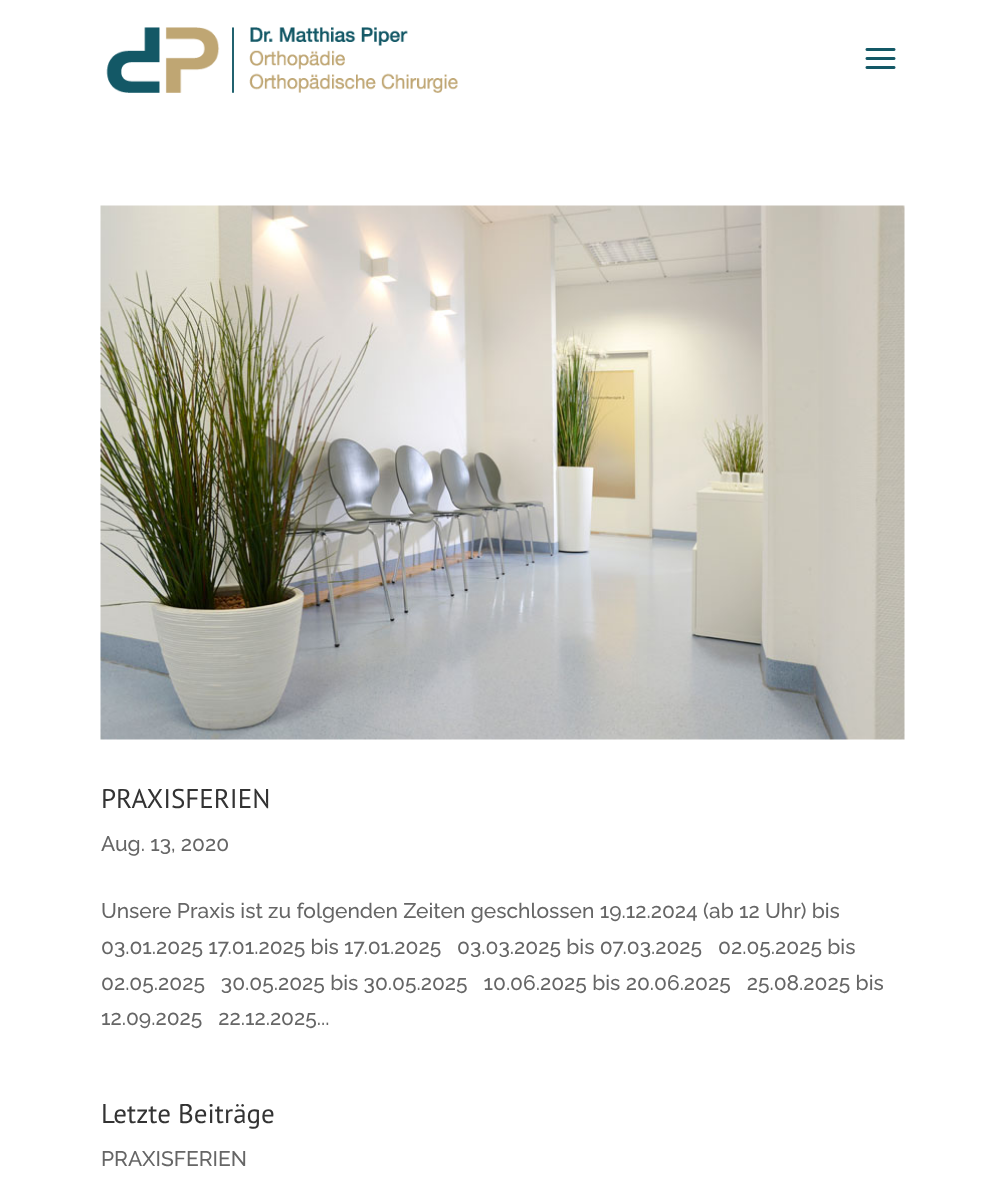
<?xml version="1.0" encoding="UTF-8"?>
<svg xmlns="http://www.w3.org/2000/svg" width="1005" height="1204">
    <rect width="100%" height="100%" fill="#FFFFFF"/>
    <image x="106" y="27" width="352" height="66" href="img_01.png"/>
    <image x="865" y="48" width="31" height="21" href="img_02.png"/>
    <image x="100" y="205" width="805" height="535" href="img_03.png"/>
    <text x="101" y="808" font-family="PT Sans" font-size="27" fill="#333333">PRAXISFERIEN</text>
    <text x="101" y="851" font-family="Raleway" font-size="21" font-weight="500" fill="#666666">Aug. 13, 2020</text>
    <text font-family="Raleway" font-size="21" font-weight="500" fill="#666666" xml:space="preserve"><tspan x="101" y="918">Unsere Praxis ist zu folgenden Zeiten geschlossen 19.12.2024 (ab 12 Uhr) bis</tspan><tspan x="101" y="954">03.01.2025 17.01.2025 bis 17.01.2025   03.03.2025 bis 07.03.2025   02.05.2025 bis</tspan><tspan x="101" y="990">02.05.2025   30.05.2025 bis 30.05.2025   10.06.2025 bis 20.06.2025   25.08.2025 bis</tspan><tspan x="101" y="1025">12.09.2025   22.12.2025...</tspan></text>
    <text x="101" y="1123" font-family="PT Sans" font-size="27" fill="#333333">Letzte Beiträge</text>
    <text x="101" y="1166" font-family="Raleway" font-size="21" font-weight="500" fill="#666666">PRAXISFERIEN</text>
</svg>
